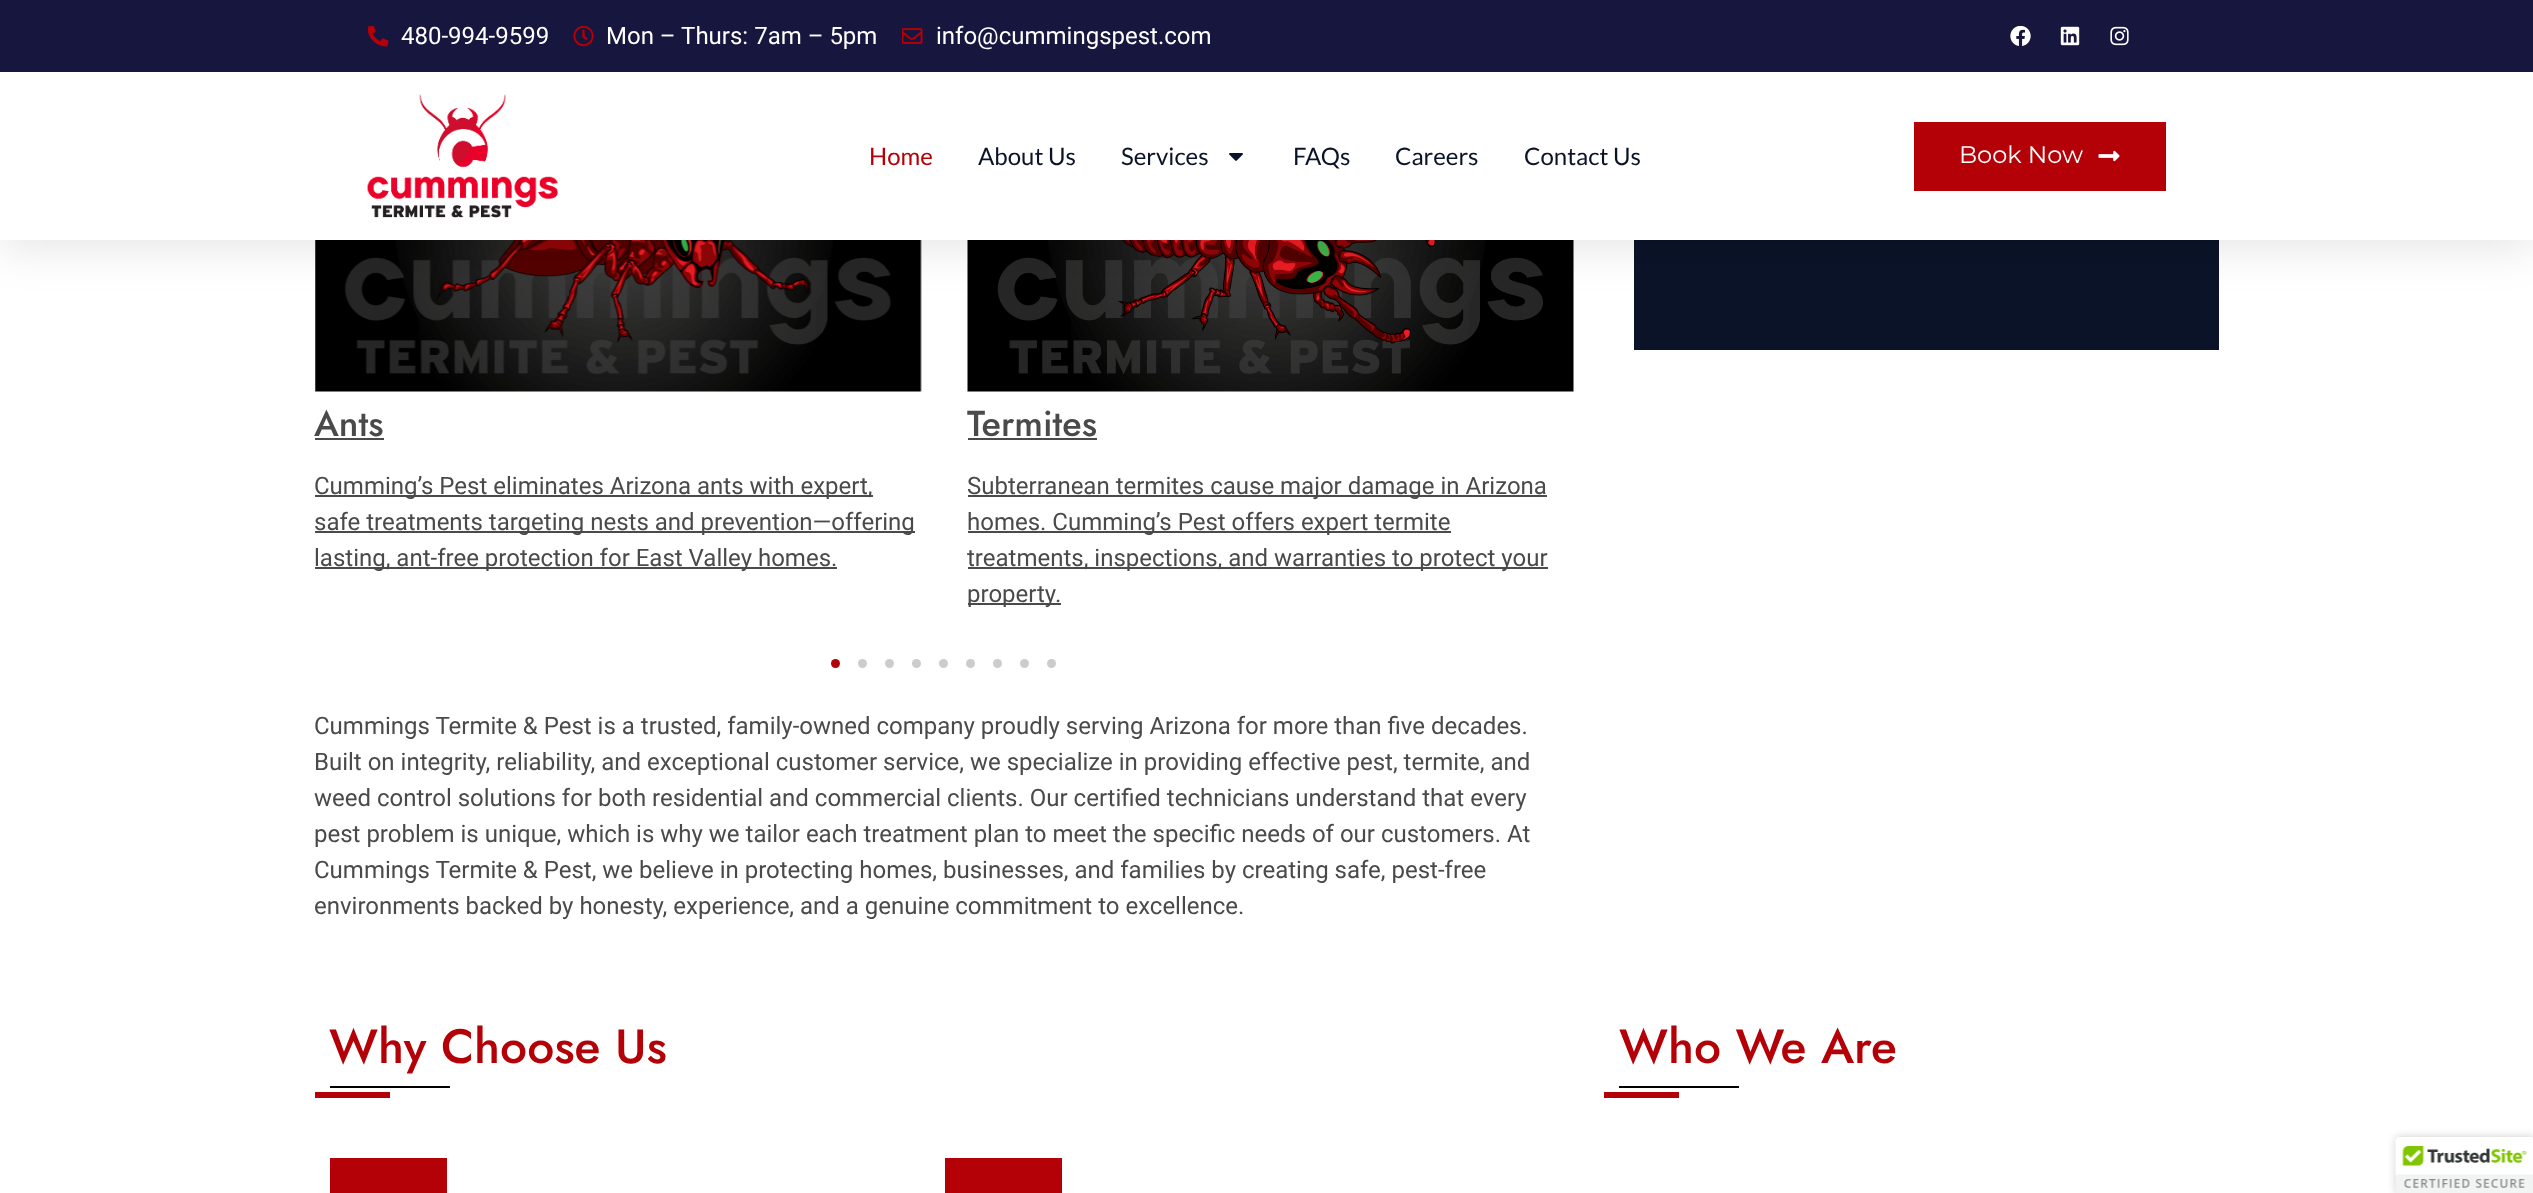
<?xml version="1.0" encoding="UTF-8"?>
<svg xmlns="http://www.w3.org/2000/svg" width="2533" height="1193">
    <defs>
        <filter id="blur1" x="-50%" y="-200%" width="200%" height="500%"><feGaussianBlur stdDeviation="22.5"/></filter>
        <filter id="blur2" x="-50%" y="-200%" width="200%" height="500%"><feGaussianBlur stdDeviation="4"/></filter>
    </defs>
    <rect width="100%" height="100%" fill="#FFFFFF"/>
    <rect x="1634" y="240" width="585" height="110" fill="#0A1328"/>
    <image x="315" y="240" width="607" height="152" href="img_10.png"/>
    <image x="967" y="240" width="607" height="152" href="img_11.png"/>
    <rect x="0" y="8" width="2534" height="240" fill="#000000" fill-opacity="0.1" filter="url(#blur1)"/>
    <rect x="0" y="0" width="2533" height="72" fill="#16163F"/>
    <image x="368" y="26" width="21" height="21" href="img_01.png"/>
    <text x="401" y="44" font-family="Roboto" font-size="24" fill="#FFFFFF">480-994-9599</text>
    <image x="573" y="26" width="21" height="21" href="img_02.png"/>
    <text x="606" y="44" font-family="Roboto" font-size="24" fill="#FFFFFF">Mon – Thurs: 7am – 5pm</text>
    <image x="902" y="28" width="21" height="16" href="img_03.png"/>
    <text x="936" y="44" font-family="Roboto" font-size="24" fill="#FFFFFF">info@cummingspest.com</text>
    <image x="2010" y="26" width="21" height="20" href="img_04.png"/>
    <image x="2060" y="26" width="20" height="20" href="img_05.png"/>
    <image x="2110" y="26" width="19" height="20" href="img_06.png"/>
    <rect x="0" y="72" width="2533" height="168" fill="#FFFFFF"/>
    <image x="367" y="94" width="191" height="124" href="img_07.png"/>
    <text x="869" y="165" font-family="Lato" font-size="24" fill="#B40007">Home</text>
    <text x="978" y="165" font-family="Lato" font-size="24" fill="#0A1328">About Us</text>
    <text x="1121" y="165" font-family="Lato" font-size="24" fill="#0A1328">Services</text>
    <image x="1229" y="153" width="14" height="8" href="img_08.png"/>
    <text x="1293" y="165" font-family="Lato" font-size="24" fill="#0A1328">FAQs</text>
    <text x="1395" y="165" font-family="Lato" font-size="24" fill="#0A1328">Careers</text>
    <text x="1524" y="165" font-family="Lato" font-size="24" fill="#0A1328">Contact Us</text>
    <rect x="1914" y="122" width="252" height="69" fill="#B40007"/>
    <text x="1959" y="163" font-family="Montserrat" font-size="24" fill="#FFFFFF">Book Now</text>
    <image x="2098" y="150" width="22" height="12" href="img_09.png"/>
    <text x="314" y="436" font-family="Jost" font-size="36" font-weight="500" fill="#4A4A4A">Ants</text>
    <rect x="315" y="438" width="69" height="2" fill="#4A4A4A"/>
    <rect x="315" y="495" width="558" height="2" fill="#4A4A4A"/>
    <text x="314" y="494" font-family="Roboto" font-size="24" fill="#4A4A4A">Cumming’s Pest eliminates Arizona ants with expert,</text>
    <rect x="315" y="531" width="600" height="2" fill="#4A4A4A"/>
    <text x="314" y="530" font-family="Roboto" font-size="24" fill="#4A4A4A">safe treatments targeting nests and prevention—offering</text>
    <rect x="315" y="567" width="522" height="2" fill="#4A4A4A"/>
    <text x="314" y="566" font-family="Roboto" font-size="24" fill="#4A4A4A">lasting, ant-free protection for East Valley homes.</text>
    <text x="967" y="436" font-family="Jost" font-size="36" font-weight="500" fill="#4A4A4A">Termites</text>
    <rect x="968" y="438" width="129" height="2" fill="#4A4A4A"/>
    <rect x="968" y="495" width="579" height="2" fill="#4A4A4A"/>
    <text x="967" y="494" font-family="Roboto" font-size="24" fill="#4A4A4A">Subterranean termites cause major damage in Arizona</text>
    <rect x="968" y="531" width="483" height="2" fill="#4A4A4A"/>
    <text x="967" y="530" font-family="Roboto" font-size="24" fill="#4A4A4A">homes. Cumming’s Pest offers expert termite</text>
    <rect x="968" y="567" width="580" height="2" fill="#4A4A4A"/>
    <text x="967" y="566" font-family="Roboto" font-size="24" fill="#4A4A4A">treatments, inspections, and warranties to protect your</text>
    <rect x="968" y="603" width="93" height="2" fill="#4A4A4A"/>
    <text x="967" y="602" font-family="Roboto" font-size="24" fill="#4A4A4A">property.</text>
    <circle cx="835.5" cy="663.5" r="4.5" fill="#B40007"/>
    <circle cx="862.5" cy="663.5" r="4.5" fill="#CCCCCC"/>
    <circle cx="889.5" cy="663.5" r="4.5" fill="#CCCCCC"/>
    <circle cx="916.5" cy="663.5" r="4.5" fill="#CCCCCC"/>
    <circle cx="943.5" cy="663.5" r="4.5" fill="#CCCCCC"/>
    <circle cx="970.5" cy="663.5" r="4.5" fill="#CCCCCC"/>
    <circle cx="997.5" cy="663.5" r="4.5" fill="#CCCCCC"/>
    <circle cx="1024.5" cy="663.5" r="4.5" fill="#CCCCCC"/>
    <circle cx="1051.5" cy="663.5" r="4.5" fill="#CCCCCC"/>
    <text font-family="Roboto" font-size="24" fill="#4A4A4A">
        <tspan x="314" y="734">Cummings Termite &amp; Pest is a trusted, family-owned company proudly serving Arizona for more than five decades.</tspan>
        <tspan x="314" y="770">Built on integrity, reliability, and exceptional customer service, we specialize in providing effective pest, termite, and</tspan>
        <tspan x="314" y="806">weed control solutions for both residential and commercial clients. Our certified technicians understand that every</tspan>
        <tspan x="314" y="842">pest problem is unique, which is why we tailor each treatment plan to meet the specific needs of our customers. At</tspan>
        <tspan x="314" y="878">Cummings Termite &amp; Pest, we believe in protecting homes, businesses, and families by creating safe, pest-free</tspan>
        <tspan x="314" y="914">environments backed by honesty, experience, and a genuine commitment to excellence.</tspan>
    </text>
    <text x="329" y="1063" font-family="Jost" font-size="48" font-weight="500" fill="#B40007">Why Choose Us</text>
    <rect x="330" y="1086" width="120" height="2" fill="#000000"/>
    <rect x="315" y="1092" width="75" height="6" fill="#B40007"/>
    <rect x="330" y="1158" width="117" height="35" fill="#B40007"/>
    <rect x="945" y="1158" width="117" height="35" fill="#B40007"/>
    <text x="1619" y="1063" font-family="Jost" font-size="48" font-weight="500" fill="#B40007">Who We Are</text>
    <rect x="1619" y="1086" width="120" height="2" fill="#000000"/>
    <rect x="1604" y="1092" width="75" height="6" fill="#B40007"/>
    <rect x="2396" y="1137" width="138" height="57" rx="3" fill="#000000" fill-opacity="0.2" filter="url(#blur2)"/>
    <path d="M 2399 1137 H 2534 V 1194 H 2396 V 1140 C 2396 1138.5 2397.5 1137 2399 1137 Z" fill="#FFFFFF"/>
    <image x="2395" y="1137" width="138" height="56" href="img_12.png"/>
</svg>
